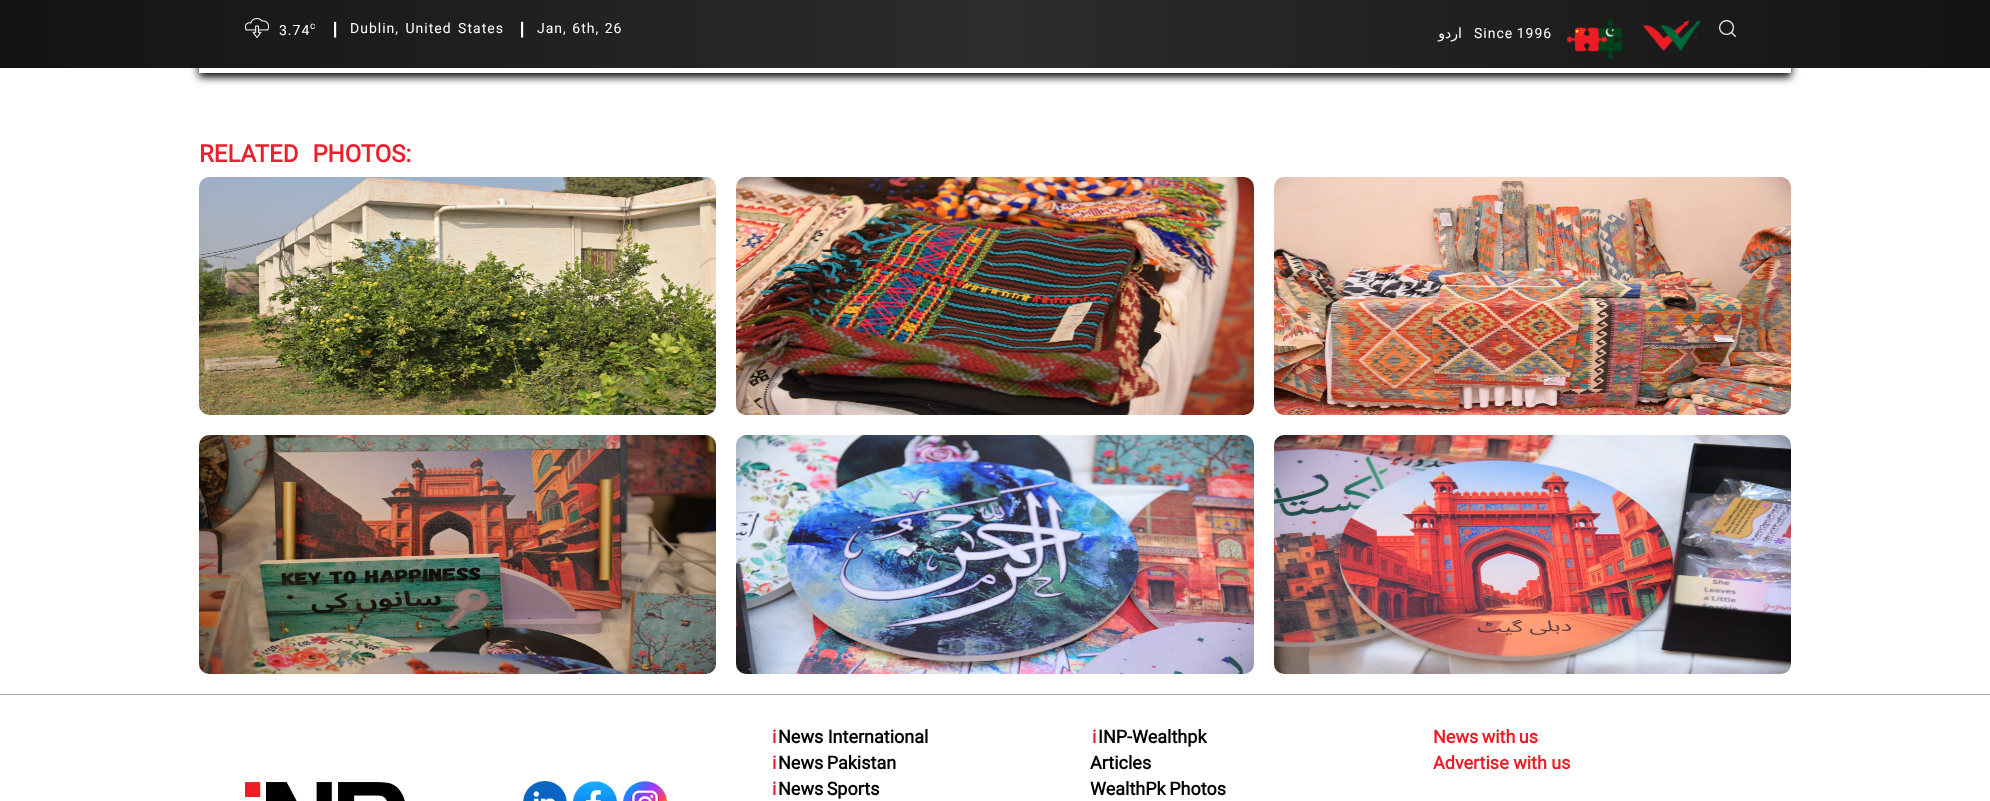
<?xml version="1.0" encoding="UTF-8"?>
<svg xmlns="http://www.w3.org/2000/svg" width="1990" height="801">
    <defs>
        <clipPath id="clip1"><path d="M 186 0 H 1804 V 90 H 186 Z M 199 -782 H 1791 V 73 H 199 Z" clip-rule="evenodd"/></clipPath>
        <filter id="blur1" x="-50%" y="-200%" width="200%" height="500%"><feGaussianBlur stdDeviation="4"/></filter>
        <linearGradient id="g1" gradientUnits="userSpaceOnUse" x1="0" y1="34" x2="1990" y2="34"><stop offset="0" stop-color="#131313"/><stop offset="0.5" stop-color="#2C2C2C"/><stop offset="1" stop-color="#131313"/></linearGradient>
    </defs>
    <rect width="100%" height="100%" fill="#FFFFFF"/>
    <g clip-path="url(#clip1)">
        <rect x="199" y="-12" width="1592" height="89" fill="#000000" filter="url(#blur1)"/>
    </g>
    <rect x="0" y="0" width="1990" height="68" fill="url(#g1)"/>
    <image x="245" y="18" width="24" height="20" href="img_01.png"/>
    <text x="279" y="35" font-family="Roboto" font-size="14" letter-spacing="1" fill="#FFFFFF">3.74</text>
    <text x="310" y="29" font-family="Roboto" font-size="10" letter-spacing="1" fill="#FFFFFF">c</text>
    <text x="331" y="34" font-family="Noto Sans" font-size="16" font-weight="900" fill="#FFFFFF">|</text>
    <text x="350" y="33" word-spacing="2" font-family="Roboto" font-size="14" letter-spacing="1" fill="#FFFFFF">Dublin, United States</text>
    <text x="518" y="34" font-family="Noto Sans" font-size="16" font-weight="900" fill="#FFFFFF">|</text>
    <text x="537" y="33" word-spacing="1" font-family="Roboto" font-size="14" letter-spacing="1" fill="#FFFFFF">Jan, 6th, 26</text>
    <text x="1462" y="38" font-family="DejaVu Sans" font-size="14" letter-spacing="1" direction="rtl" fill="#FFFFFF">اردو</text>
    <text x="1474" y="38" word-spacing="-1" font-family="Roboto" font-size="14" letter-spacing="1" fill="#FFFFFF">Since 1996</text>
    <image x="1567" y="20" width="55" height="39" href="img_02.png"/>
    <image x="1643" y="20" width="58" height="31" href="img_03.png"/>
    <image x="1719" y="20" width="17" height="17" href="img_04.png"/>
    <text x="199" y="162" word-spacing="8" font-family="Roboto" font-size="24" font-weight="700" fill="#EA212D">RELATED PHOTOS:</text>
    <image x="199" y="177" width="517" height="238" href="img_05.png"/>
    <image x="736" y="177" width="518" height="238" href="img_06.png"/>
    <image x="1274" y="177" width="517" height="238" href="img_07.png"/>
    <image x="199" y="435" width="517" height="239" href="img_08.png"/>
    <image x="736" y="435" width="518" height="239" href="img_09.png"/>
    <image x="1274" y="435" width="517" height="239" href="img_10.png"/>
    <rect x="0" y="694" width="1990" height="1" fill="#A7A7A7"/>
    <image x="245" y="782" width="160" height="19" href="img_11.png"/>
    <image x="523" y="781" width="44" height="20" href="img_12.png"/>
    <image x="573" y="781" width="44" height="20" href="img_13.png"/>
    <image x="623" y="781" width="44" height="20" href="img_14.png"/>
    <text x="772" y="743" font-family="Roboto" font-size="18" font-weight="700" fill="#ED1C24">i</text>
    <text x="778" y="743" font-family="Roboto" font-size="18" font-weight="700" fill="#000000">News International</text>
    <text x="1092" y="743" font-family="Roboto" font-size="18" font-weight="700" fill="#ED1C24">i</text>
    <text x="1098" y="743" font-family="Roboto" font-size="18" font-weight="700" fill="#000000">INP-Wealthpk</text>
    <text x="772" y="769" font-family="Roboto" font-size="18" font-weight="700" fill="#ED1C24">i</text>
    <text x="778" y="769" word-spacing="-1" font-family="Roboto" font-size="18" font-weight="700" fill="#000000">News Pakistan</text>
    <text x="1090" y="769" font-family="Roboto" font-size="18" font-weight="700" fill="#000000">Articles</text>
    <text x="772" y="795" font-family="Roboto" font-size="18" font-weight="700" fill="#ED1C24">i</text>
    <text x="778" y="795" word-spacing="-1" font-family="Roboto" font-size="18" font-weight="700" fill="#000000">News Sports</text>
    <text x="1090" y="795" word-spacing="-1" font-family="Roboto" font-size="18" font-weight="700" fill="#000000">WealthPk Photos</text>
    <text font-family="Roboto" font-size="18" font-weight="700" fill="#ED1C24">
        <tspan x="1433" y="743" word-spacing="-1">News with us</tspan>
        <tspan x="1433" y="769">Advertise with us</tspan>
    </text>
</svg>
